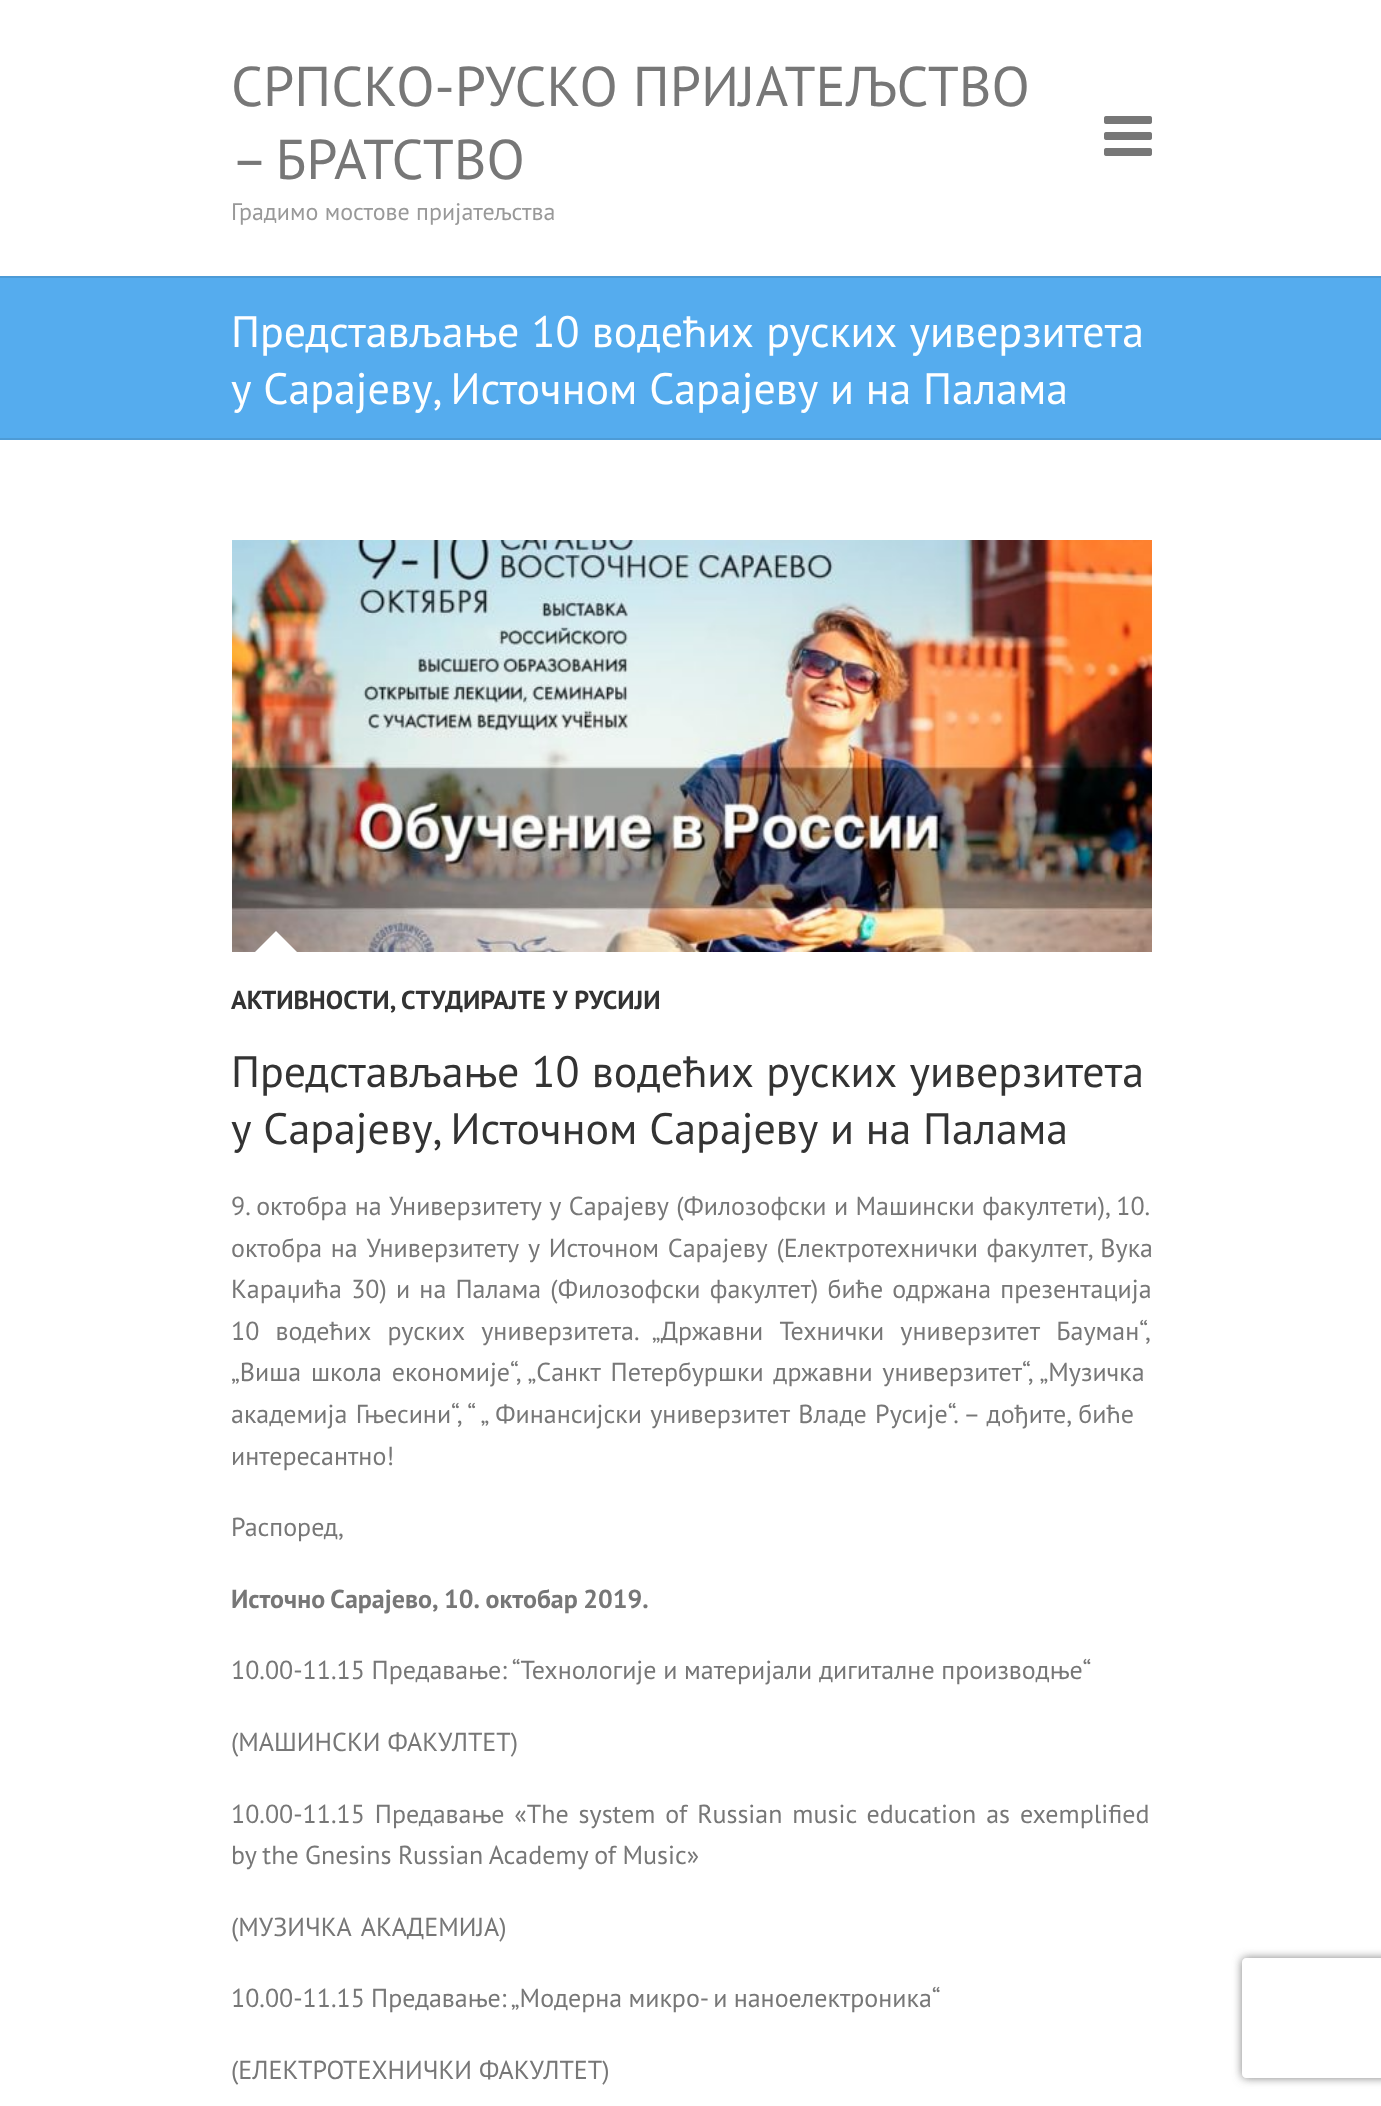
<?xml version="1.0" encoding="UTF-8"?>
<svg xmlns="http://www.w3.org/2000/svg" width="1381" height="2106">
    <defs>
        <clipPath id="clip1"><path d="M 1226 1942 H 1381 V 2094 H 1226 Z M 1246 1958 H 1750 C 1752 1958 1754 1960 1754 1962 V 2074 C 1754 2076 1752 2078 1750 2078 H 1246 C 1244 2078 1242 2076 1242 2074 V 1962 C 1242 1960 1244 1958 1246 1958 Z" clip-rule="evenodd"/></clipPath>
        <filter id="blur1" x="-50%" y="-200%" width="200%" height="500%"><feGaussianBlur stdDeviation="5"/></filter>
    </defs>
    <rect width="100%" height="100%" fill="#FFFFFF"/>
    <text font-family="PT Sans" font-size="56" fill="#777777">
        <tspan x="231" y="106">СРПСКО-РУСКО ПРИЈАТЕЉСТВО</tspan>
        <tspan x="231" y="179" word-spacing="-3">– БРАТСТВО</tspan>
    </text>
    <text x="231" y="220" font-family="PT Sans" font-size="24" fill="#999999">Градимо мостове пријатељства</text>
    <image x="1104" y="116" width="48" height="40" href="img_01.png"/>
    <rect x="0" y="278" width="1381" height="160" fill="#55ACEE"/>
    <rect x="0" y="276" width="1381" height="2" fill="#4D9BD6"/>
    <rect x="0" y="438" width="1381" height="2" fill="#4D9BD6"/>
    <text font-family="PT Sans" font-size="44" fill="#FFFFFF">
        <tspan x="231" y="347" word-spacing="0.5">Представљање 10 водећих руских уиверзитета</tspan>
        <tspan x="231" y="404">у Сарајеву, Источном Сарајеву и на Палама</tspan>
    </text>
    <image x="232" y="540" width="920" height="412" href="img_02.png"/>
    <path d="M 276 931 L 297 952 L 276 973 L 255 952 Z" fill="#FFFFFF"/>
    <text x="231" y="1009" font-family="PT Sans" font-size="26" font-weight="700" fill="#333333">АКТИВНОСТИ,</text>
    <text x="401" y="1009" word-spacing="1" font-family="PT Sans" font-size="26" font-weight="700" fill="#333333">СТУДИРАЈТЕ У РУСИЈИ</text>
    <text font-family="PT Sans" font-size="44" fill="#333333">
        <tspan x="231" y="1087" word-spacing="0.5">Представљање 10 водећих руских уиверзитета</tspan>
        <tspan x="231" y="1144">у Сарајеву, Источном Сарајеву и на Палама</tspan>
    </text>
    <text font-family="PT Sans" font-size="26" fill="#777777">
        <tspan x="231" y="1215" word-spacing="0.5">9. октобра на Универзитету у Сарајеву (Филозофски и Машински факултети), 10.</tspan>
        <tspan x="231" y="1257" word-spacing="1.75">октобра на Универзитету у Источном Сарајеву (Електротехнички факултет, Вука</tspan>
        <tspan x="231" y="1298" word-spacing="2.25">Караџића 30) и на Палама (Филозофски факултет) биће одржана презентација</tspan>
        <tspan x="231" y="1340" word-spacing="9.25">10 водећих руских универзитета. „Државни Технички универзитет Бауман“,</tspan>
        <tspan x="231" y="1381" word-spacing="2.75">„Виша школа економије“, „Санкт Петербуршки државни универзитет“, „Музичка</tspan>
        <tspan x="231" y="1423" word-spacing="1.4">академија Гњесини“, “ „ Финансијски универзитет Владе Русије“. – дођите, биће</tspan>
        <tspan x="231" y="1465">интересантно!</tspan>
    </text>
    <text x="231" y="1536" font-family="PT Sans" font-size="26" fill="#777777">Распоред,</text>
    <text x="231" y="1608" word-spacing="-1" font-family="PT Sans" font-size="26" font-weight="700" fill="#777777">Источно Сарајево, 10. октобар 2019.</text>
    <text x="231" y="1679" word-spacing="-0.25" font-family="PT Sans" font-size="26" fill="#777777">10.00-11.15 Предавање: “Технологије и материјали дигиталне производње“</text>
    <text x="231" y="1751" font-family="PT Sans" font-size="26" fill="#777777">(МАШИНСКИ ФАКУЛТЕТ)</text>
    <text font-family="PT Sans" font-size="26" fill="#777777">
        <tspan x="231" y="1823" word-spacing="3">10.00-11.15 Предавање «The system of Russian music education as exemplified</tspan>
        <tspan x="231" y="1864" word-spacing="-0.5">by the Gnesins Russian Academy of Music»</tspan>
    </text>
    <text x="231" y="1936" word-spacing="2" font-family="PT Sans" font-size="26" fill="#777777">(МУЗИЧКА АКАДЕМИЈА)</text>
    <text x="231" y="2007" word-spacing="-0.75" font-family="PT Sans" font-size="26" fill="#777777">10.00-11.15 Предавање: „Модерна микро- и наноелектроника“</text>
    <text x="231" y="2079" font-family="PT Sans" font-size="26" fill="#777777">(ЕЛЕКТРОТЕХНИЧКИ ФАКУЛТЕТ)</text>
    <g clip-path="url(#clip1)">
        <rect x="1242" y="1958" width="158" height="120" rx="4" fill="#808080" filter="url(#blur1)"/>
    </g>
</svg>
